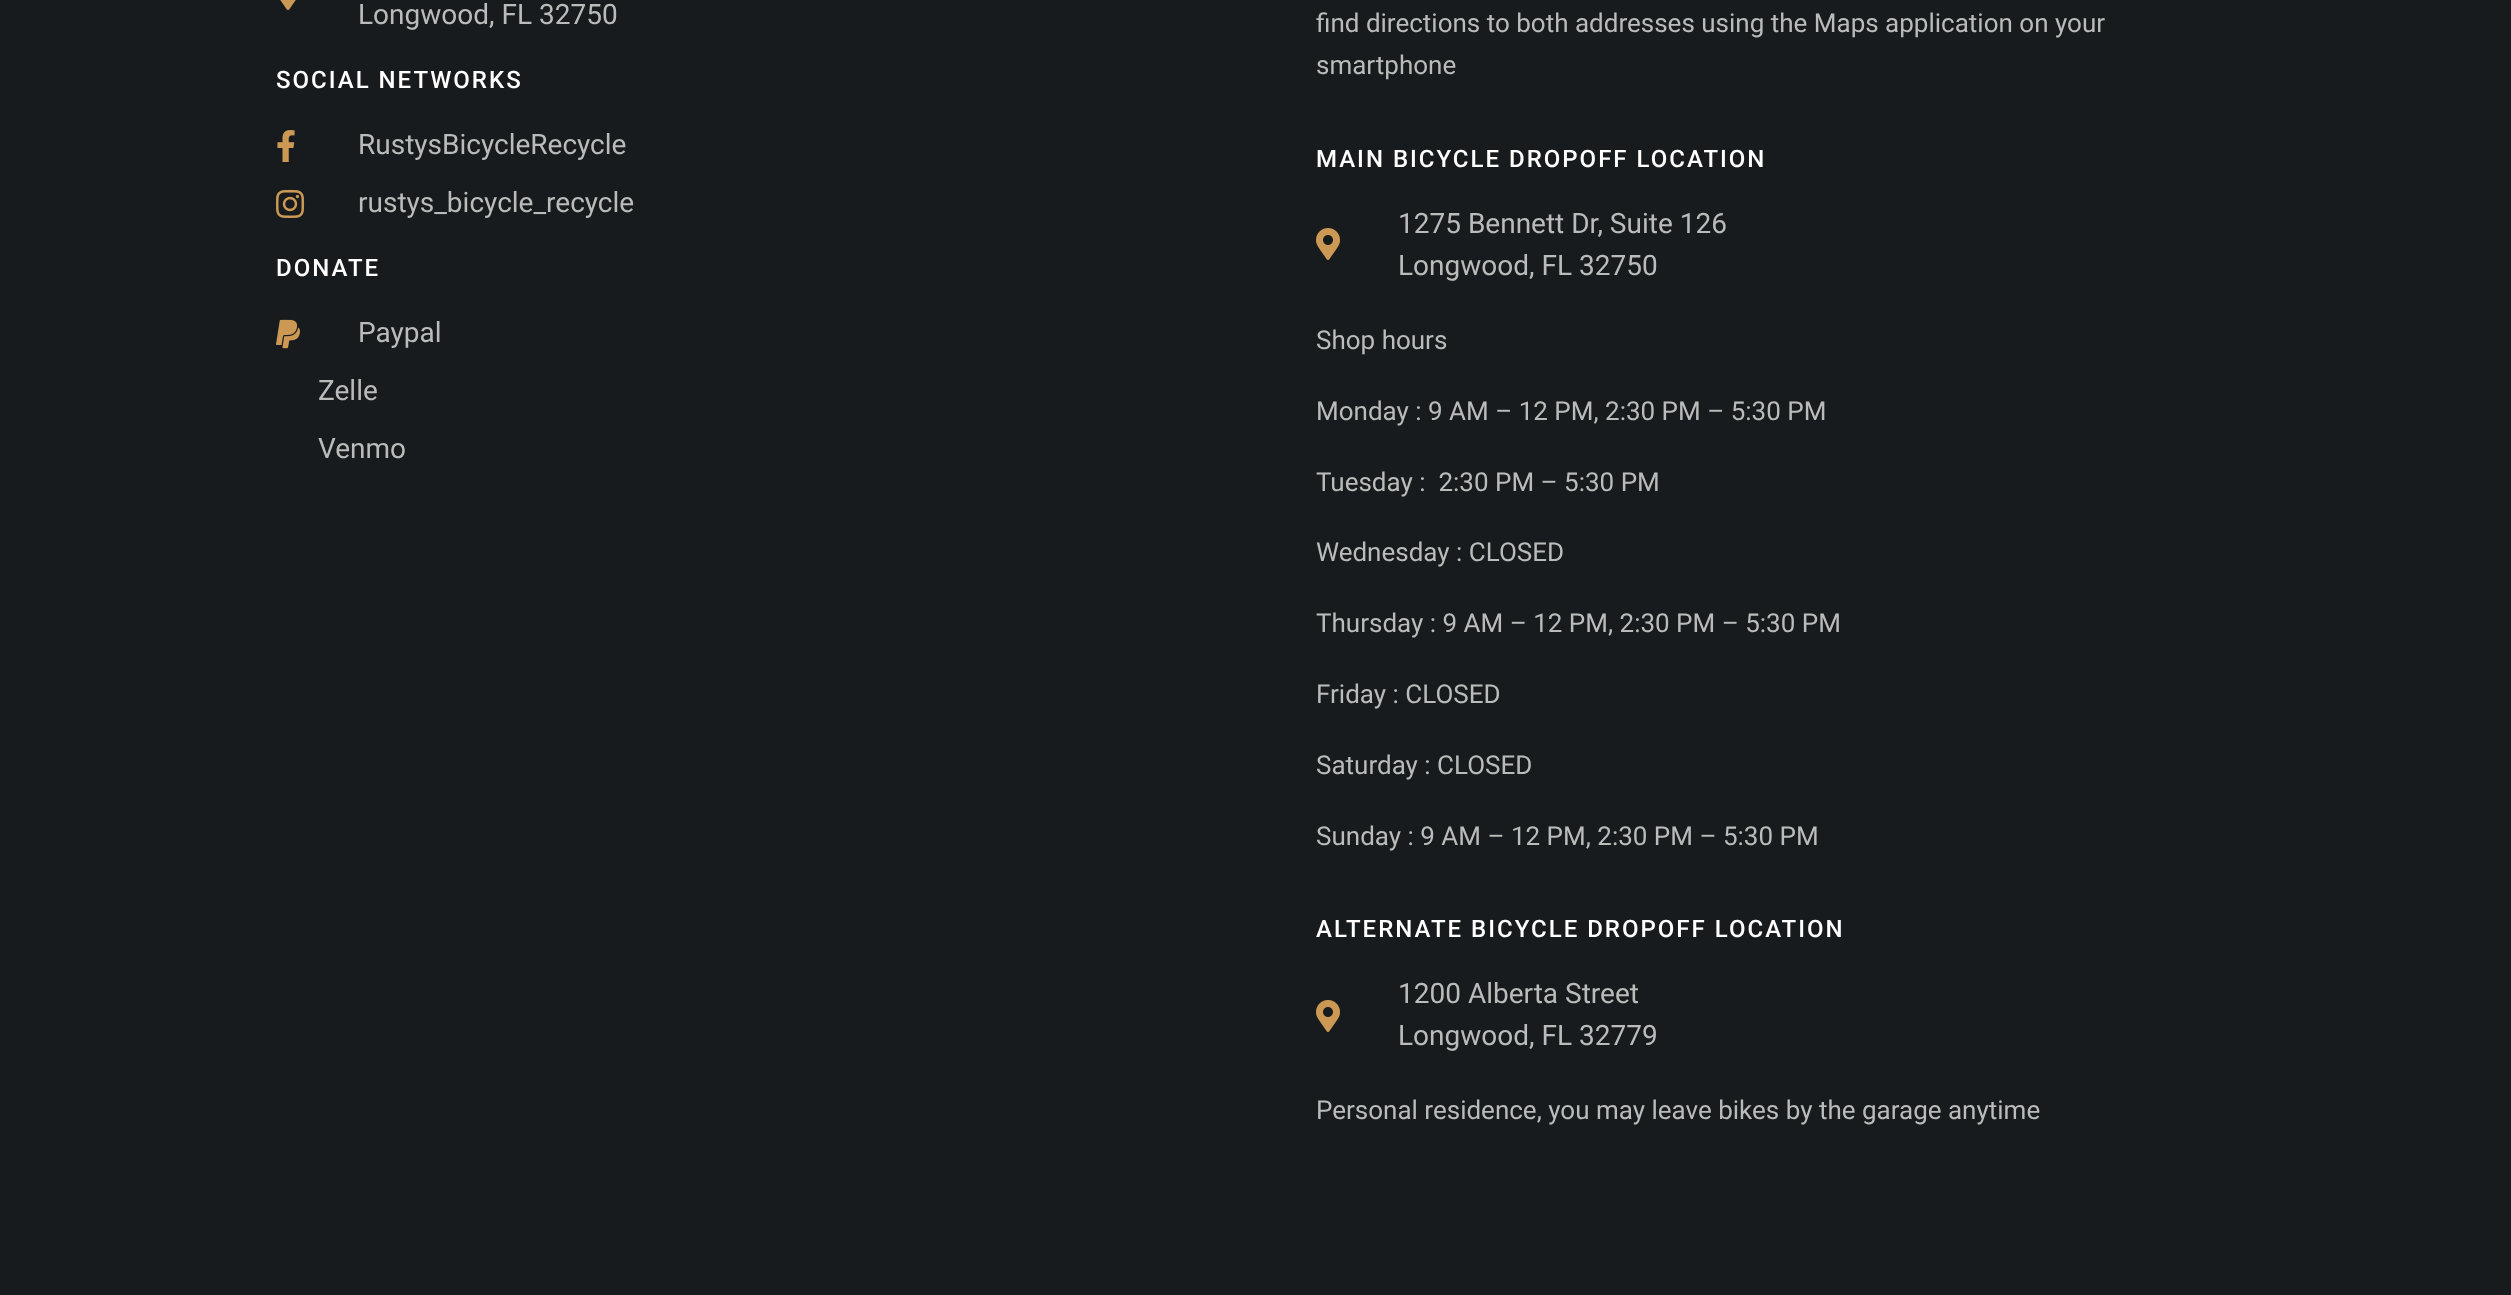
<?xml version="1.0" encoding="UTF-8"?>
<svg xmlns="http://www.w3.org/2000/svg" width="2511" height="1295">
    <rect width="100%" height="100%" fill="#181B1D"/>
    <image x="280" y="0" width="16" height="10" href="img_01.png"/>
    <text x="358" y="24" font-family="Roboto" font-size="28" fill="#BABBBB">Longwood, FL 32750</text>
    <text x="276" y="88" font-family="Roboto" font-size="24" font-weight="500" letter-spacing="2" fill="#FFFFFF">SOCIAL NETWORKS</text>
    <image x="277" y="130" width="18" height="32" href="img_02.png"/>
    <text x="358" y="154" font-family="Roboto" font-size="28" fill="#BABBBB">RustysBicycleRecycle</text>
    <image x="276" y="189" width="29" height="29" href="img_03.png"/>
    <text x="358" y="212" font-family="Roboto" font-size="28" fill="#BABBBB">rustys_bicycle_recycle</text>
    <text x="276" y="276" font-family="Roboto" font-size="24" font-weight="500" letter-spacing="2" fill="#FFFFFF">DONATE</text>
    <image x="276" y="319" width="24" height="30" href="img_04.png"/>
    <text x="358" y="342" font-family="Roboto" font-size="28" fill="#BABBBB">Paypal</text>
    <text x="318" y="400" font-family="Roboto" font-size="28" fill="#BABBBB">Zelle</text>
    <text x="318" y="458" font-family="Roboto" font-size="28" fill="#BABBBB">Venmo</text>
    <text font-family="Roboto" font-size="26" fill="#BABBBB">
        <tspan x="1316" y="32">find directions to both addresses using the Maps application on your</tspan>
        <tspan x="1316" y="74">smartphone</tspan>
    </text>
    <text x="1316" y="167" font-family="Roboto" font-size="24" font-weight="500" letter-spacing="2" fill="#FFFFFF">MAIN BICYCLE DROPOFF LOCATION</text>
    <image x="1316" y="228" width="24" height="32" href="img_05.png"/>
    <text font-family="Roboto" font-size="28" fill="#BABBBB">
        <tspan x="1398" y="233">1275 Bennett Dr, Suite 126</tspan>
        <tspan x="1398" y="275">Longwood, FL 32750</tspan>
    </text>
    <text x="1316" y="349" font-family="Roboto" font-size="26" fill="#BABBBB">Shop hours</text>
    <text x="1316" y="420" font-family="Roboto" font-size="26" fill="#BABBBB">Monday : 9 AM – 12 PM, 2:30 PM – 5:30 PM</text>
    <text x="1316" y="491" font-family="Roboto" font-size="26" fill="#BABBBB" xml:space="preserve">Tuesday :  2:30 PM – 5:30 PM</text>
    <text x="1316" y="561" font-family="Roboto" font-size="26" fill="#BABBBB">Wednesday : CLOSED</text>
    <text x="1316" y="632" font-family="Roboto" font-size="26" fill="#BABBBB">Thursday : 9 AM – 12 PM, 2:30 PM – 5:30 PM</text>
    <text x="1316" y="703" font-family="Roboto" font-size="26" fill="#BABBBB">Friday : CLOSED</text>
    <text x="1316" y="774" font-family="Roboto" font-size="26" fill="#BABBBB">Saturday : CLOSED</text>
    <text x="1316" y="845" font-family="Roboto" font-size="26" fill="#BABBBB">Sunday : 9 AM – 12 PM, 2:30 PM – 5:30 PM</text>
    <text x="1316" y="937" font-family="Roboto" font-size="24" font-weight="500" letter-spacing="2" fill="#FFFFFF">ALTERNATE BICYCLE DROPOFF LOCATION</text>
    <image x="1316" y="1000" width="24" height="32" href="img_05.png"/>
    <text font-family="Roboto" font-size="28" fill="#BABBBB">
        <tspan x="1398" y="1003">1200 Alberta Street</tspan>
        <tspan x="1398" y="1045">Longwood, FL 32779</tspan>
    </text>
    <text x="1316" y="1119" font-family="Roboto" font-size="26" fill="#BABBBB">Personal residence, you may leave bikes by the garage anytime</text>
</svg>
